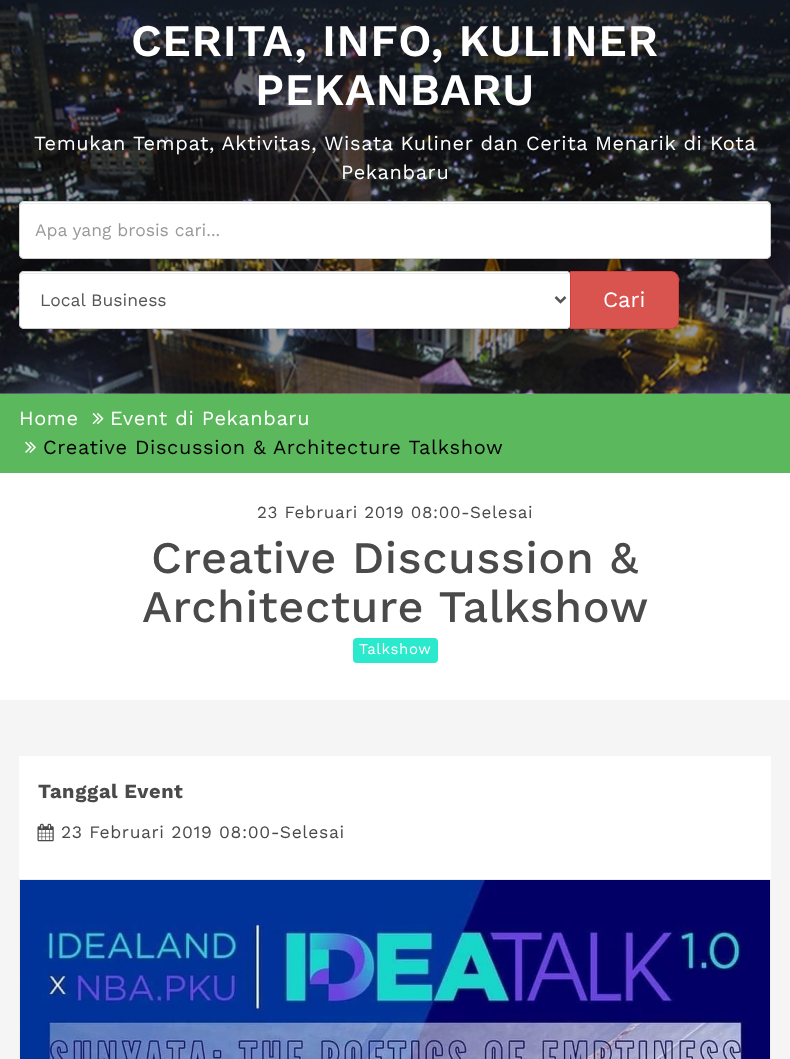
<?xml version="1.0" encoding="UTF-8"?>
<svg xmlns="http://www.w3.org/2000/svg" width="790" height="1059">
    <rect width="100%" height="100%" fill="#F5F5F5"/>
    <image x="0" y="0" width="790" height="394" href="img_01.png"/>
    <text x="131" y="56" font-family="Work Sans" font-size="45" font-weight="600" letter-spacing="0.62" fill="#FFFFFF">CERITA, INFO, KULINER</text>
    <text x="255" y="105" font-family="Work Sans" font-size="45" font-weight="600" letter-spacing="0.62" fill="#FFFFFF">PEKANBARU</text>
    <text x="34" y="150" font-family="Work Sans" font-size="20" letter-spacing="0.62" fill="#FFFFFF">Temukan Tempat, Aktivitas, Wisata Kuliner dan Cerita Menarik di Kota</text>
    <text x="341" y="179" font-family="Work Sans" font-size="20" letter-spacing="0.62" fill="#FFFFFF">Pekanbaru</text>
    <rect x="19" y="201" width="752" height="58" rx="5" fill="#FFFFFF"/>
    <path d="M 24 204 H 766 C 768 204 770 205 770 208 C 770 205 769 203 766 203 H 24 C 21 203 20 205 20 208 C 20 205 22 204 24 204 Z" fill="#ECECEC"/>
    <rect x="19.5" y="201.5" width="751" height="57" rx="4.5" fill="none" stroke="#CCCCCC"/>
    <text x="35" y="236" font-family="Work Sans" font-size="17.5" fill="#999999">Apa yang brosis cari...</text>
    <rect x="19" y="271" width="552" height="58" rx="5" fill="#FFFFFF"/>
    <path d="M 24 274 H 566 C 568 274 570 275 570 278 V 277 C 570 275 568 273 566 273 H 24 C 22 273 20 275 20 277 V 278 C 20 275 22 274 24 274 Z" fill="#ECECEC"/>
    <rect x="19.5" y="271.5" width="551" height="57" rx="4.5" fill="none" stroke="#CCCCCC"/>
    <path d="M 555.5 297 L 560.5 302 L 565.5 297" fill="none" stroke="#555555" stroke-width="2.5"/>
    <text x="40" y="306" font-family="Work Sans" font-size="17.5" fill="#555555">Local Business</text>
    <path d="M 570.5 271.5 H 671 C 675 271.5 678.5 275 678.5 279 V 321 C 678.5 325 675 328.5 671 328.5 H 570.5 Z" fill="#D9534F" stroke="#D43F3A"/>
    <text x="603" y="307" font-family="Work Sans" font-size="22" fill="#FFFFFF">Cari</text>
    <rect x="0" y="394" width="790" height="79" fill="#5CB85C"/>
    <text x="19" y="425" font-family="Work Sans" font-size="20" letter-spacing="0.62" fill="#FFFFFF">Home</text>
    <image x="92" y="413" width="12" height="12" href="img_02.png"/>
    <text x="110" y="425" font-family="Work Sans" font-size="20" letter-spacing="0.62" fill="#FFFFFF">Event di Pekanbaru</text>
    <image x="25" y="441" width="11" height="12" href="img_03.png"/>
    <text x="43" y="454" font-family="Work Sans" font-size="20" letter-spacing="0.62" fill="#000000">Creative Discussion &amp; Architecture Talkshow</text>
    <rect x="0" y="473" width="790" height="227" fill="#FFFFFF"/>
    <text x="257" y="518" font-family="Work Sans" font-size="17" letter-spacing="0.62" fill="#4A4A4A">23 Februari 2019 08:00-Selesai</text>
    <text x="151" y="573" font-family="Work Sans" font-size="45" font-weight="500" letter-spacing="0.62" fill="#4A4A4A">Creative Discussion &amp;</text>
    <text x="142" y="622" font-family="Work Sans" font-size="45" font-weight="500" letter-spacing="0.62" fill="#4A4A4A">Architecture Talkshow</text>
    <rect x="353" y="638" width="85" height="25" rx="4" fill="#2AE9CC"/>
    <text x="359" y="654" font-family="Work Sans" font-size="15" letter-spacing="0.62" fill="#FFFFFF">Talkshow</text>
    <rect x="19" y="756" width="752" height="123" fill="#FFFFFF"/>
    <text x="38" y="798" font-family="Work Sans" font-size="20" font-weight="700" letter-spacing="0.62" fill="#4A4A4A">Tanggal Event</text>
    <image x="37" y="823" width="17" height="19" href="img_04.png"/>
    <text x="61" y="838" font-family="Work Sans" font-size="17.5" letter-spacing="0.62" fill="#4A4A4A">23 Februari 2019 08:00-Selesai</text>
    <rect x="19.5" y="879.5" width="751" height="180" fill="none" stroke="#EEEEEE"/>
    <image x="20" y="880" width="750" height="179" href="img_05.png"/>
</svg>
